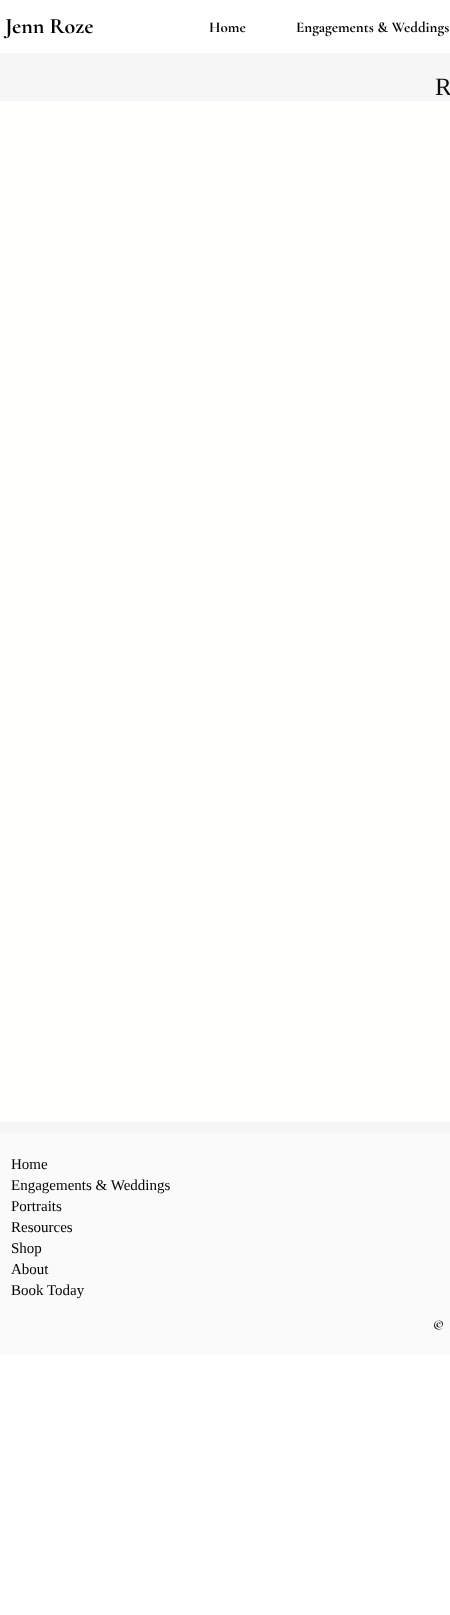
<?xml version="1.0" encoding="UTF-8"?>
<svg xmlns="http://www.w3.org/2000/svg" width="450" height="1615">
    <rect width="100%" height="100%" fill="#FFFFFF"/>
    <text x="5" y="33" font-family="Cormorant Garamond" font-size="22" font-weight="700" fill="#000000">Jenn Roze</text>
    <text x="209" y="32" font-family="Cormorant Garamond" font-size="15" font-weight="700" fill="#000000">Home</text>
    <text x="296" y="32" font-family="Cormorant Garamond" font-size="15" font-weight="700" fill="#000000">Engagements &amp; Weddings</text>
    <rect x="0" y="53" width="450" height="1080" fill="#F6F6F6"/>
    <text x="435" y="95" font-family="Liberation Serif" font-size="25" fill="#0D0D0C">R</text>
    <rect x="0" y="101" width="450" height="1021" fill="#FFFFFE"/>
    <rect x="0" y="1133" width="450" height="221" fill="#FAFAFA"/>
    <text font-family="Liberation Serif" font-size="15" fill="#000000">
        <tspan x="11" y="1169">Home</tspan>
        <tspan x="11" y="1190">Engagements &amp; Weddings</tspan>
        <tspan x="11" y="1211">Portraits</tspan>
        <tspan x="11" y="1232">Resources</tspan>
        <tspan x="11" y="1253">Shop</tspan>
        <tspan x="11" y="1274">About</tspan>
        <tspan x="11" y="1295">Book Today</tspan>
    </text>
    <text x="433" y="1328" font-family="Cormorant Garamond" font-size="15" font-weight="600" fill="#0D0D0C">©</text>
</svg>
